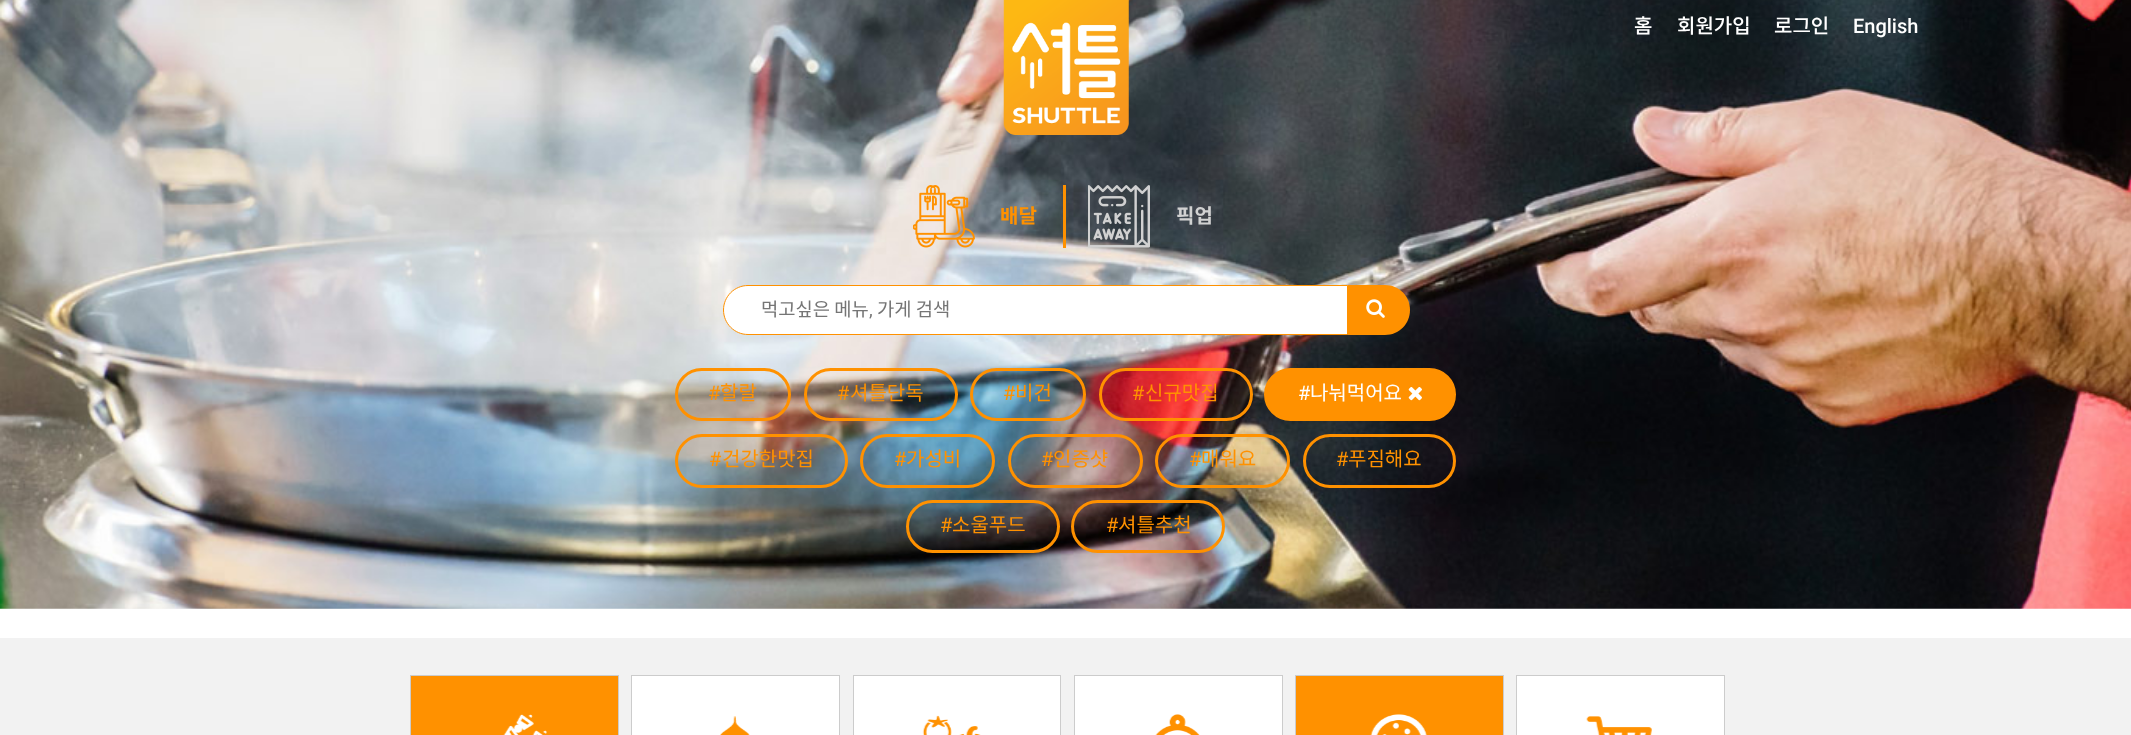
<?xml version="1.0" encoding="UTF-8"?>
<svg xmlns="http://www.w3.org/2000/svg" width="2131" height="735">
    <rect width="100%" height="100%" fill="#FFFFFF"/>
    <image x="0" y="0" width="2131" height="609" href="img_01.png"/>
    <image x="1003" y="0" width="126" height="135" href="img_02.png"/>
    <text x="1634" y="33" font-family="Noto Sans CJK KR" font-size="20" font-weight="500" fill="#FFFFFF">홈</text>
    <text x="1677" y="33" font-family="Noto Sans CJK KR" font-size="20" font-weight="500" fill="#FFFFFF">회원가입</text>
    <text x="1774" y="33" font-family="Noto Sans CJK KR" font-size="20" font-weight="500" fill="#FFFFFF">로그인</text>
    <text x="1853" y="33" font-family="Roboto" font-size="20" font-weight="500" fill="#FFFFFF">English</text>
    <rect x="1063" y="185" width="3" height="63" fill="#FF9100"/>
    <image x="913" y="185" width="62" height="63" href="img_03.png"/>
    <text x="1000" y="223" font-family="Noto Sans CJK KR" font-size="20" font-weight="700" fill="#FF9100">배달</text>
    <image x="1088" y="185" width="62" height="63" href="img_04.png"/>
    <text x="1176" y="223" font-family="Noto Sans CJK KR" font-size="20" font-weight="700" fill="#D1D1D1">픽업</text>
    <path d="M 748 285.5 H 1347.5 V 334.5 H 748 C 734.5 334.5 723.5 323.5 723.5 310 C 723.5 296.5 734.5 285.5 748 285.5 Z" fill="#FFFFFF" stroke="#FF9100"/>
    <text x="761" y="316" font-family="Noto Sans CJK KR" font-size="18.75" fill="#757575">먹고싶은 메뉴</text>
    <text x="869" y="316" font-family="Roboto" font-size="18.75" fill="#757575">,</text>
    <text x="877" y="316" font-family="Noto Sans CJK KR" font-size="18.75" fill="#757575">가게 검색</text>
    <path d="M 1348 285 H 1385 C 1399 285 1410 296 1410 310 C 1410 324 1399 335 1385 335 H 1348 Z" fill="#FF9100"/>
    <image x="1366" y="299" width="19" height="19" href="img_05.png"/>
    <rect x="676.5" y="369.5" width="113" height="50" rx="25" fill="none" stroke="#FF9100" stroke-width="3"/>
    <text x="708" y="400" font-family="Roboto" font-size="20" fill="#FF9100">#</text>
    <text x="720" y="400" font-family="Noto Sans CJK KR" font-size="20" fill="#FF9100">할랄</text>
    <rect x="805.5" y="369.5" width="151" height="50" rx="25" fill="none" stroke="#FF9100" stroke-width="3"/>
    <text x="837" y="400" font-family="Roboto" font-size="20" fill="#FF9100">#</text>
    <text x="850" y="400" font-family="Noto Sans CJK KR" font-size="20" fill="#FF9100">셔틀단독</text>
    <rect x="971.5" y="369.5" width="113" height="50" rx="25" fill="none" stroke="#FF9100" stroke-width="3"/>
    <text x="1003" y="400" font-family="Roboto" font-size="20" fill="#FF9100">#</text>
    <text x="1015" y="400" font-family="Noto Sans CJK KR" font-size="20" fill="#FF9100">비건</text>
    <rect x="1100.5" y="369.5" width="151" height="50" rx="25" fill="none" stroke="#FF9100" stroke-width="3"/>
    <text x="1132" y="400" font-family="Roboto" font-size="20" fill="#FF9100">#</text>
    <text x="1145" y="400" font-family="Noto Sans CJK KR" font-size="20" fill="#FF9100">신규맛집</text>
    <rect x="1265.5" y="369.5" width="189" height="50" rx="25" fill="#FF9100" stroke="#FF9100" stroke-width="3"/>
    <text x="1298" y="400" font-family="Roboto" font-size="20" fill="#FFFFFF">#</text>
    <text x="1310" y="400" font-family="Noto Sans CJK KR" font-size="20" fill="#FFFFFF">나눠먹어요</text>
    <image x="1408" y="387" width="14" height="14" href="img_06.png"/>
    <rect x="676.5" y="435.5" width="170" height="51" rx="25.5" fill="none" stroke="#FF9100" stroke-width="3"/>
    <text x="709" y="466" font-family="Roboto" font-size="20" fill="#FF9100">#</text>
    <text x="722" y="466" font-family="Noto Sans CJK KR" font-size="20" fill="#FF9100">건강한맛집</text>
    <rect x="861.5" y="435.5" width="132" height="51" rx="25.5" fill="none" stroke="#FF9100" stroke-width="3"/>
    <text x="894" y="466" font-family="Roboto" font-size="20" fill="#FF9100">#</text>
    <text x="906" y="466" font-family="Noto Sans CJK KR" font-size="20" fill="#FF9100">가성비</text>
    <rect x="1009.5" y="435.5" width="132" height="51" rx="25.5" fill="none" stroke="#FF9100" stroke-width="3"/>
    <text x="1041" y="466" font-family="Roboto" font-size="20" fill="#FF9100">#</text>
    <text x="1053" y="466" font-family="Noto Sans CJK KR" font-size="20" fill="#FF9100">인증샷</text>
    <rect x="1156.5" y="435.5" width="132" height="51" rx="25.5" fill="none" stroke="#FF9100" stroke-width="3"/>
    <text x="1189" y="466" font-family="Roboto" font-size="20" fill="#FF9100">#</text>
    <text x="1201" y="466" font-family="Noto Sans CJK KR" font-size="20" fill="#FF9100">매워요</text>
    <rect x="1304.5" y="435.5" width="150" height="51" rx="25.5" fill="none" stroke="#FF9100" stroke-width="3"/>
    <text x="1336" y="466" font-family="Roboto" font-size="20" fill="#FF9100">#</text>
    <text x="1348" y="466" font-family="Noto Sans CJK KR" font-size="20" fill="#FF9100">푸짐해요</text>
    <rect x="907.5" y="501.5" width="151" height="50" rx="25" fill="none" stroke="#FF9100" stroke-width="3"/>
    <text x="940" y="532" font-family="Roboto" font-size="20" fill="#FF9100">#</text>
    <text x="952" y="532" font-family="Noto Sans CJK KR" font-size="20" fill="#FF9100">소울푸드</text>
    <rect x="1072.5" y="501.5" width="151" height="50" rx="25" fill="none" stroke="#FF9100" stroke-width="3"/>
    <text x="1106" y="532" font-family="Roboto" font-size="20" fill="#FF9100">#</text>
    <text x="1118" y="532" font-family="Noto Sans CJK KR" font-size="20" fill="#FF9100">셔틀추천</text>
    <rect x="0" y="638" width="2131" height="97" fill="#F2F2F2"/>
    <rect x="410.5" y="675.5" width="208" height="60" fill="#FF9100" stroke="#CCCCCC"/>
    <image x="503" y="714" width="44" height="21" href="img_07.png"/>
    <rect x="631.5" y="675.5" width="208" height="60" fill="#FFFFFF" stroke="#CCCCCC"/>
    <image x="720" y="716" width="30" height="19" href="img_08.png"/>
    <rect x="853.5" y="675.5" width="207" height="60" fill="#FFFFFF" stroke="#CCCCCC"/>
    <image x="922" y="715" width="59" height="20" href="img_09.png"/>
    <rect x="1074.5" y="675.5" width="208" height="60" fill="#FFFFFF" stroke="#CCCCCC"/>
    <image x="1155" y="714" width="45" height="21" href="img_10.png"/>
    <rect x="1295.5" y="675.5" width="208" height="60" fill="#FF9100" stroke="#CCCCCC"/>
    <image x="1370" y="714" width="57" height="21" href="img_11.png"/>
    <rect x="1516.5" y="675.5" width="208" height="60" fill="#FFFFFF" stroke="#CCCCCC"/>
    <image x="1586" y="716" width="66" height="19" href="img_12.png"/>
</svg>
